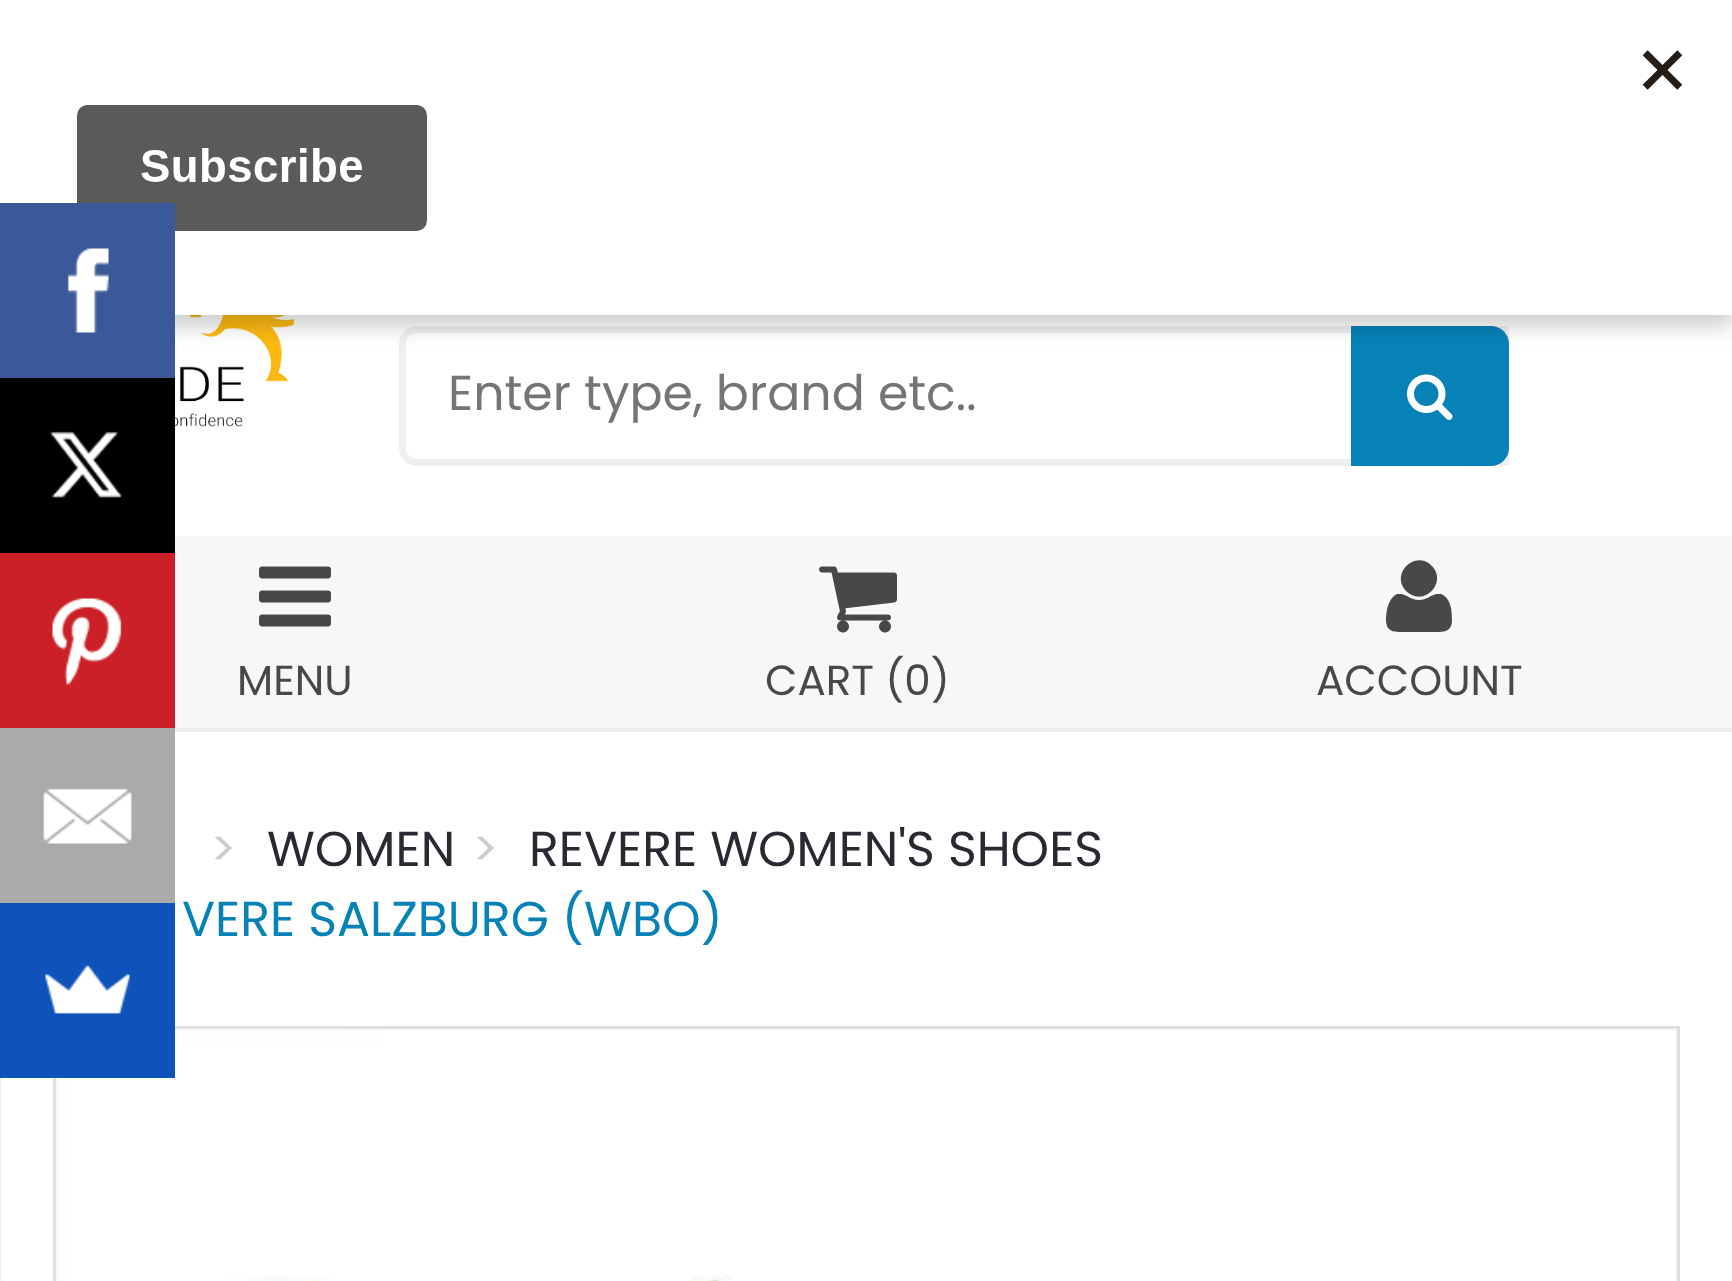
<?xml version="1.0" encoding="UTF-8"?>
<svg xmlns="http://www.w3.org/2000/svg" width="1732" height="1281">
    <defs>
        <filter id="blur1" x="-50%" y="-200%" width="200%" height="500%"><feGaussianBlur stdDeviation="10.5"/></filter>
    </defs>
    <rect width="100%" height="100%" fill="#FFFFFF"/>
    <rect x="0" y="1078" width="1" height="203" fill="#EBEBEB"/>
    <image x="175" y="315" width="119" height="112" href="img_07.png"/>
    <path d="M 417 329.5 H 1505.5 V 462.5 H 417 C 409 462.5 402.5 456 402.5 448 V 344 C 402.5 336 409 329.5 417 329.5 Z" fill="none" stroke="#EFEFEF" stroke-width="7"/>
    <path d="M 1351 326 H 1491 C 1501 326 1509 334 1509 344 V 448 C 1509 458 1501 466 1491 466 H 1351 Z" fill="#0682B6"/>
    <rect x="0" y="11" width="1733" height="315" fill="#000000" fill-opacity="0.2" filter="url(#blur1)"/>
    <rect x="0" y="0" width="1732" height="315" fill="#FFFFFF"/>
    <image x="76" y="50" width="1607" height="181" href="img_01.png"/>
    <rect x="0" y="203" width="175" height="175" fill="#3B5998"/>
    <image x="67" y="248" width="42" height="85" href="img_02.png"/>
    <rect x="0" y="378" width="175" height="175" fill="#000000"/>
    <image x="50" y="431" width="72" height="67" href="img_03.png"/>
    <rect x="0" y="553" width="175" height="175" fill="#CB2027"/>
    <image x="52" y="598" width="70" height="87" href="img_04.png"/>
    <rect x="0" y="728" width="175" height="175" fill="#AAAAAA"/>
    <image x="43" y="788" width="89" height="56" href="img_05.png"/>
    <rect x="55" y="1028" width="1623" height="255" fill="none" stroke="#DFDCE2" stroke-width="4"/>
    <image x="55" y="1028" width="1623" height="253" href="img_11.png"/>
    <rect x="0" y="903" width="175" height="175" fill="#0F52BA"/>
    <image x="45" y="965" width="85" height="49" href="img_06.png"/>
    <text x="448" y="410" font-family="Poppins" font-size="49" fill="#757575">Enter type, brand etc..</text>
    <image x="1407" y="374" width="46" height="46" href="img_08.png"/>
    <rect x="175" y="536" width="1557" height="192" fill="#F7F7F7"/>
    <rect x="175" y="728" width="1557" height="4" fill="#ECECEC"/>
    <image x="259" y="566" width="72" height="61" href="img_09.png"/>
    <text x="237" y="695" font-family="Poppins" font-size="42" fill="#474949">MENU</text>
    <image x="819" y="566" width="78" height="67" href="img_10.png"/>
    <text x="765" y="695" font-family="Poppins" font-size="42" fill="#474949">CART (0)</text>
    <path d="M 1452 620 C 1452 633 1442 632 1433 632 H 1405 C 1396 632 1386 633 1386 620 C 1386 612 1388 598 1397 594 H 1402 L 1407 596 C 1410 598 1415 600 1419 600 C 1423 600 1428 598 1431 596 L 1436 594 H 1441 C 1451 598 1452 611 1452 620 Z M 1432 566 C 1448 583 1423 608 1406 591 C 1390 574 1415 549 1432 566 Z" fill="#474949"/>
    <text x="1316" y="695" font-family="Poppins" font-size="42" fill="#474949">ACCOUNT</text>
    <text x="210" y="866" font-family="Poppins" font-size="49" fill="#CCCCCC">&gt;</text>
    <text x="267" y="866" font-family="Poppins" font-size="49" fill="#2B2831">WOMEN</text>
    <text x="472" y="866" font-family="Poppins" font-size="49" fill="#CCCCCC">&gt;</text>
    <text x="529" y="866" font-family="Poppins" font-size="49" fill="#2B2831">REVERE WOMEN'S SHOES</text>
    <text x="182" y="936" font-family="Poppins" font-size="49" fill="#0682B6">VERE SALZBURG (WBO)</text>
</svg>
